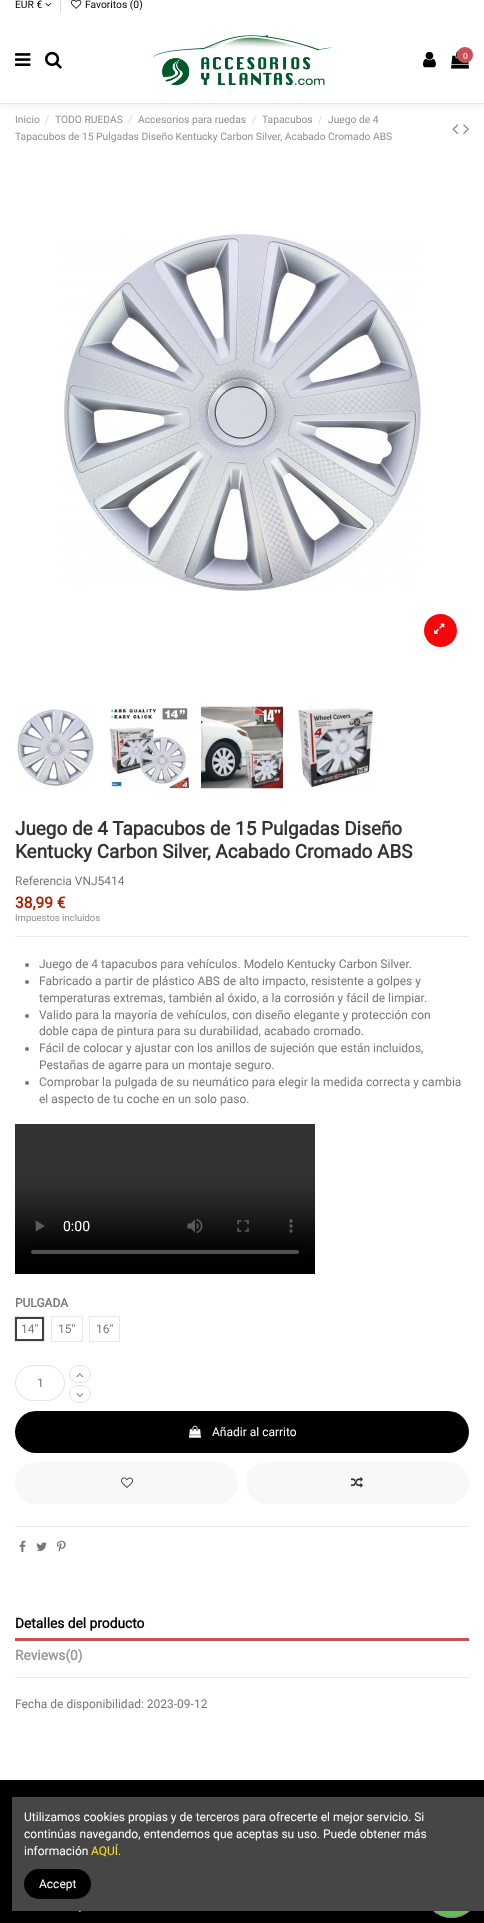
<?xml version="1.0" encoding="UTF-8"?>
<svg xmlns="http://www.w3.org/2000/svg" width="484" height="1923">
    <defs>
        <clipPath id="clip1"><rect x="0" y="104" width="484" height="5"/></clipPath>
        <filter id="blur1" x="-50%" y="-200%" width="200%" height="500%"><feGaussianBlur stdDeviation="5.5"/></filter>
    </defs>
    <rect width="100%" height="100%" fill="#FFFFFF"/>
    <g clip-path="url(#clip1)">
        <rect x="0" y="-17" width="484" height="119" fill="#3D3939" fill-opacity="0.17" filter="url(#blur1)"/>
    </g>
    <text x="15" y="8" font-family="Roboto" font-size="10.3" fill="#000000">EUR €</text>
    <image x="45" y="3" width="7" height="4" href="img_01.png"/>
    <rect x="60" y="0" width="1" height="13" fill="#DED9D9"/>
    <image x="71" y="0" width="11" height="9" href="img_02.png"/>
    <text x="85" y="8" font-family="Roboto" font-size="10.3" fill="#000000">Favoritos (0)</text>
    <rect x="0" y="103" width="484" height="1" fill="#E3E3E3"/>
    <image x="15" y="53" width="16" height="13" href="img_03.png"/>
    <image x="45" y="51" width="17" height="18" href="img_04.png"/>
    <image x="153" y="35" width="179" height="50" href="img_05.png"/>
    <image x="423" y="51" width="13" height="17" href="img_06.png"/>
    <image x="451" y="50" width="18" height="19" href="img_07.png"/>
    <circle cx="465" cy="55" r="8" fill="#CA5058"/>
    <text x="463" y="59" font-family="Liberation Serif" font-size="9.5" fill="#FFFFFF">0</text>
    <text x="15" y="123" font-family="Roboto" font-size="10.3" fill="#8F8F8F">Inicio</text>
    <text x="45" y="123" font-family="Roboto" font-size="10.3" fill="#D2D2D2">/</text>
    <text x="55" y="123" font-family="Roboto" font-size="10.3" fill="#8F8F8F">TODO RUEDAS</text>
    <text x="128" y="123" font-family="Roboto" font-size="10.3" fill="#D2D2D2">/</text>
    <text x="138" y="123" font-family="Roboto" font-size="10.3" fill="#8F8F8F">Accesorios para ruedas</text>
    <text x="252" y="123" font-family="Roboto" font-size="10.3" fill="#D2D2D2">/</text>
    <text x="262" y="123" font-family="Roboto" font-size="10.3" fill="#8F8F8F">Tapacubos</text>
    <text x="318" y="123" font-family="Roboto" font-size="10.3" fill="#D2D2D2">/</text>
    <text x="328" y="123" font-family="Roboto" font-size="10.3" fill="#8F8F8F">Juego de 4</text>
    <text x="15" y="140" font-family="Roboto" font-size="10.3" fill="#8F8F8F">Tapacubos de 15 Pulgadas Diseño Kentucky Carbon Silver, Acabado Cromado ABS</text>
    <image x="452" y="124" width="7" height="11" href="img_08.png"/>
    <image x="463" y="124" width="6" height="11" href="img_09.png"/>
    <image x="60" y="231" width="362" height="360" href="img_10.png"/>
    <circle cx="440.5" cy="630.5" r="16.5" fill="#F30909"/>
    <image x="434" y="623" width="11" height="11" href="img_11.png"/>
    <image x="17" y="709" width="77" height="77" href="img_12.png"/>
    <image x="109" y="708" width="80" height="81" href="img_13.png"/>
    <image x="201" y="706" width="82" height="83" href="img_14.png"/>
    <image x="298" y="708" width="75" height="79" href="img_15.png"/>
    <rect x="15" y="936" width="454" height="1" fill="#E8E8E8"/>
    <text font-family="Roboto" font-size="18.9" font-weight="700" fill="#333333">
        <tspan x="15" y="835">Juego de 4 Tapacubos de 15 Pulgadas Diseño</tspan>
        <tspan x="15" y="858">Kentucky Carbon Silver, Acabado Cromado ABS</tspan>
    </text>
    <text x="15" y="885" font-family="Roboto" font-size="12" fill="#777777">Referencia VNJ5414</text>
    <text x="15" y="908" font-family="Roboto" font-size="15.5" font-weight="700" fill="#AD1F00">38,99 €</text>
    <text x="15" y="921" font-family="Roboto" font-size="9.5" fill="#8F8F8F">Impuestos incluidos</text>
    <circle cx="27" cy="965" r="2" fill="#777777"/>
    <text x="39" y="968" font-family="Roboto" font-size="12" fill="#777777">Juego de 4 tapacubos para vehículos. Modelo Kentucky Carbon Silver.</text>
    <circle cx="27" cy="982" r="2" fill="#777777"/>
    <text font-family="Roboto" font-size="12" fill="#777777">
        <tspan x="39" y="985">Fabricado a partir de plástico ABS de alto impacto, resistente a golpes y</tspan>
        <tspan x="39" y="1002">temperaturas extremas, también al óxido, a la corrosión y fácil de limpiar.</tspan>
    </text>
    <circle cx="27" cy="1016" r="2" fill="#777777"/>
    <text font-family="Roboto" font-size="12" fill="#777777">
        <tspan x="39" y="1019">Valido para la mayoría de vehículos, con diseño elegante y protección con</tspan>
        <tspan x="39" y="1035">doble capa de pintura para su durabilidad, acabado cromado.</tspan>
    </text>
    <circle cx="27" cy="1049" r="2" fill="#777777"/>
    <text font-family="Roboto" font-size="12" fill="#777777">
        <tspan x="39" y="1052">Fácil de colocar y ajustar con los anillos de sujeción que están incluidos,</tspan>
        <tspan x="39" y="1069">Pestañas de agarre para un montaje seguro.</tspan>
    </text>
    <circle cx="27" cy="1083" r="2" fill="#777777"/>
    <text font-family="Roboto" font-size="12" fill="#777777">
        <tspan x="39" y="1086">Comprobar la pulgada de su neumático para elegir la medida correcta y cambia</tspan>
        <tspan x="39" y="1103">el aspecto de tu coche en un solo paso.</tspan>
    </text>
    <image x="15" y="1124" width="300" height="150" href="img_16.png"/>
    <text x="15" y="1307" font-family="Roboto" font-size="12" font-weight="700" fill="#777777">PULGADA</text>
    <rect x="16" y="1318" width="27" height="22" fill="none" stroke="#414141" stroke-width="2"/>
    <rect x="14.5" y="1316.5" width="30" height="25" fill="none" stroke="#E8E8E8"/>
    <text x="21" y="1333" font-family="Roboto" font-size="12" fill="#777777">14"</text>
    <rect x="51.5" y="1316.5" width="31" height="25" fill="none" stroke="#E8E8E8"/>
    <text x="58" y="1333" font-family="Roboto" font-size="12" fill="#777777">15"</text>
    <rect x="89.5" y="1316.5" width="30" height="25" fill="none" stroke="#E8E8E8"/>
    <text x="96" y="1333" font-family="Roboto" font-size="12" fill="#777777">16"</text>
    <rect x="15.5" y="1365.5" width="49" height="35" rx="17.5" fill="none" stroke="#E3E3E3"/>
    <text x="37" y="1387" font-family="Roboto" font-size="12" fill="#777777">1</text>
    <rect x="69.5" y="1365.5" width="21" height="17" rx="8.5" fill="none" stroke="#E3E3E3"/>
    <image x="76" y="1373" width="8" height="5" href="img_17.png"/>
    <rect x="69.5" y="1385.5" width="21" height="17" rx="8.5" fill="none" stroke="#E3E3E3"/>
    <image x="76" y="1393" width="8" height="4" href="img_18.png"/>
    <rect x="15" y="1411" width="454" height="42" rx="21" fill="#000000"/>
    <image x="189" y="1425" width="12" height="13" href="img_19.png"/>
    <text x="212" y="1436" font-family="Roboto" font-size="12" fill="#FFFFFF">Añadir al carrito</text>
    <rect x="15" y="1462" width="223" height="42" rx="21" fill="#F8F8F8"/>
    <image x="121" y="1477" width="12" height="11" href="img_20.png"/>
    <rect x="246" y="1462" width="223" height="42" rx="21" fill="#F8F8F8"/>
    <image x="351" y="1477" width="12" height="11" href="img_21.png"/>
    <rect x="15" y="1526" width="454" height="1" fill="#E8E8E8"/>
    <image x="19" y="1540" width="7" height="12" href="img_22.png"/>
    <image x="36" y="1542" width="11" height="9" href="img_23.png"/>
    <image x="57" y="1540" width="9" height="12" href="img_24.png"/>
    <rect x="15" y="1677" width="454" height="1" fill="#E8E8E8"/>
    <rect x="15" y="1638" width="454" height="3" fill="#CA5058"/>
    <text x="15" y="1628" font-family="Roboto" font-size="13.75" font-weight="700" fill="#000000">Detalles del producto</text>
    <text x="15" y="1660" font-family="Roboto" font-size="13.75" font-weight="700" fill="#999999">Reviews(0)</text>
    <text x="15" y="1708" font-family="Roboto" font-size="12" fill="#777777">Fecha de disponibilidad: 2023-09-12</text>
    <rect x="0" y="1780" width="484" height="143" fill="#000000"/>
    <image x="78" y="1911" width="3" height="1" href="img_25.png"/>
    <circle cx="451.5" cy="1890.5" r="27.5" fill="#65BC54"/>
    <image x="433" y="1911" width="37" height="2" href="img_26.png"/>
    <circle cx="451.5" cy="1890.5" r="27" fill="none" stroke="#888888"/>
    <rect x="12" y="1797" width="472" height="114" fill="#464646"/>
    <text font-family="Roboto" font-size="12" fill="#FFFFFF">
        <tspan x="24" y="1821">Utilizamos cookies propias y de terceros para ofrecerte el mejor servicio. Si</tspan>
        <tspan x="24" y="1838">continúas navegando, entendemos que aceptas su uso. Puede obtener más</tspan>
        <tspan x="24" y="1855">información</tspan>
    </text>
    <text x="91" y="1855" font-family="Roboto" font-size="12" fill="#FBE329">AQUÍ.</text>
    <rect x="24" y="1869" width="67" height="30" rx="15" fill="#000000"/>
    <text x="39" y="1888" font-family="Roboto" font-size="12" fill="#FFFFFF">Accept</text>
</svg>
